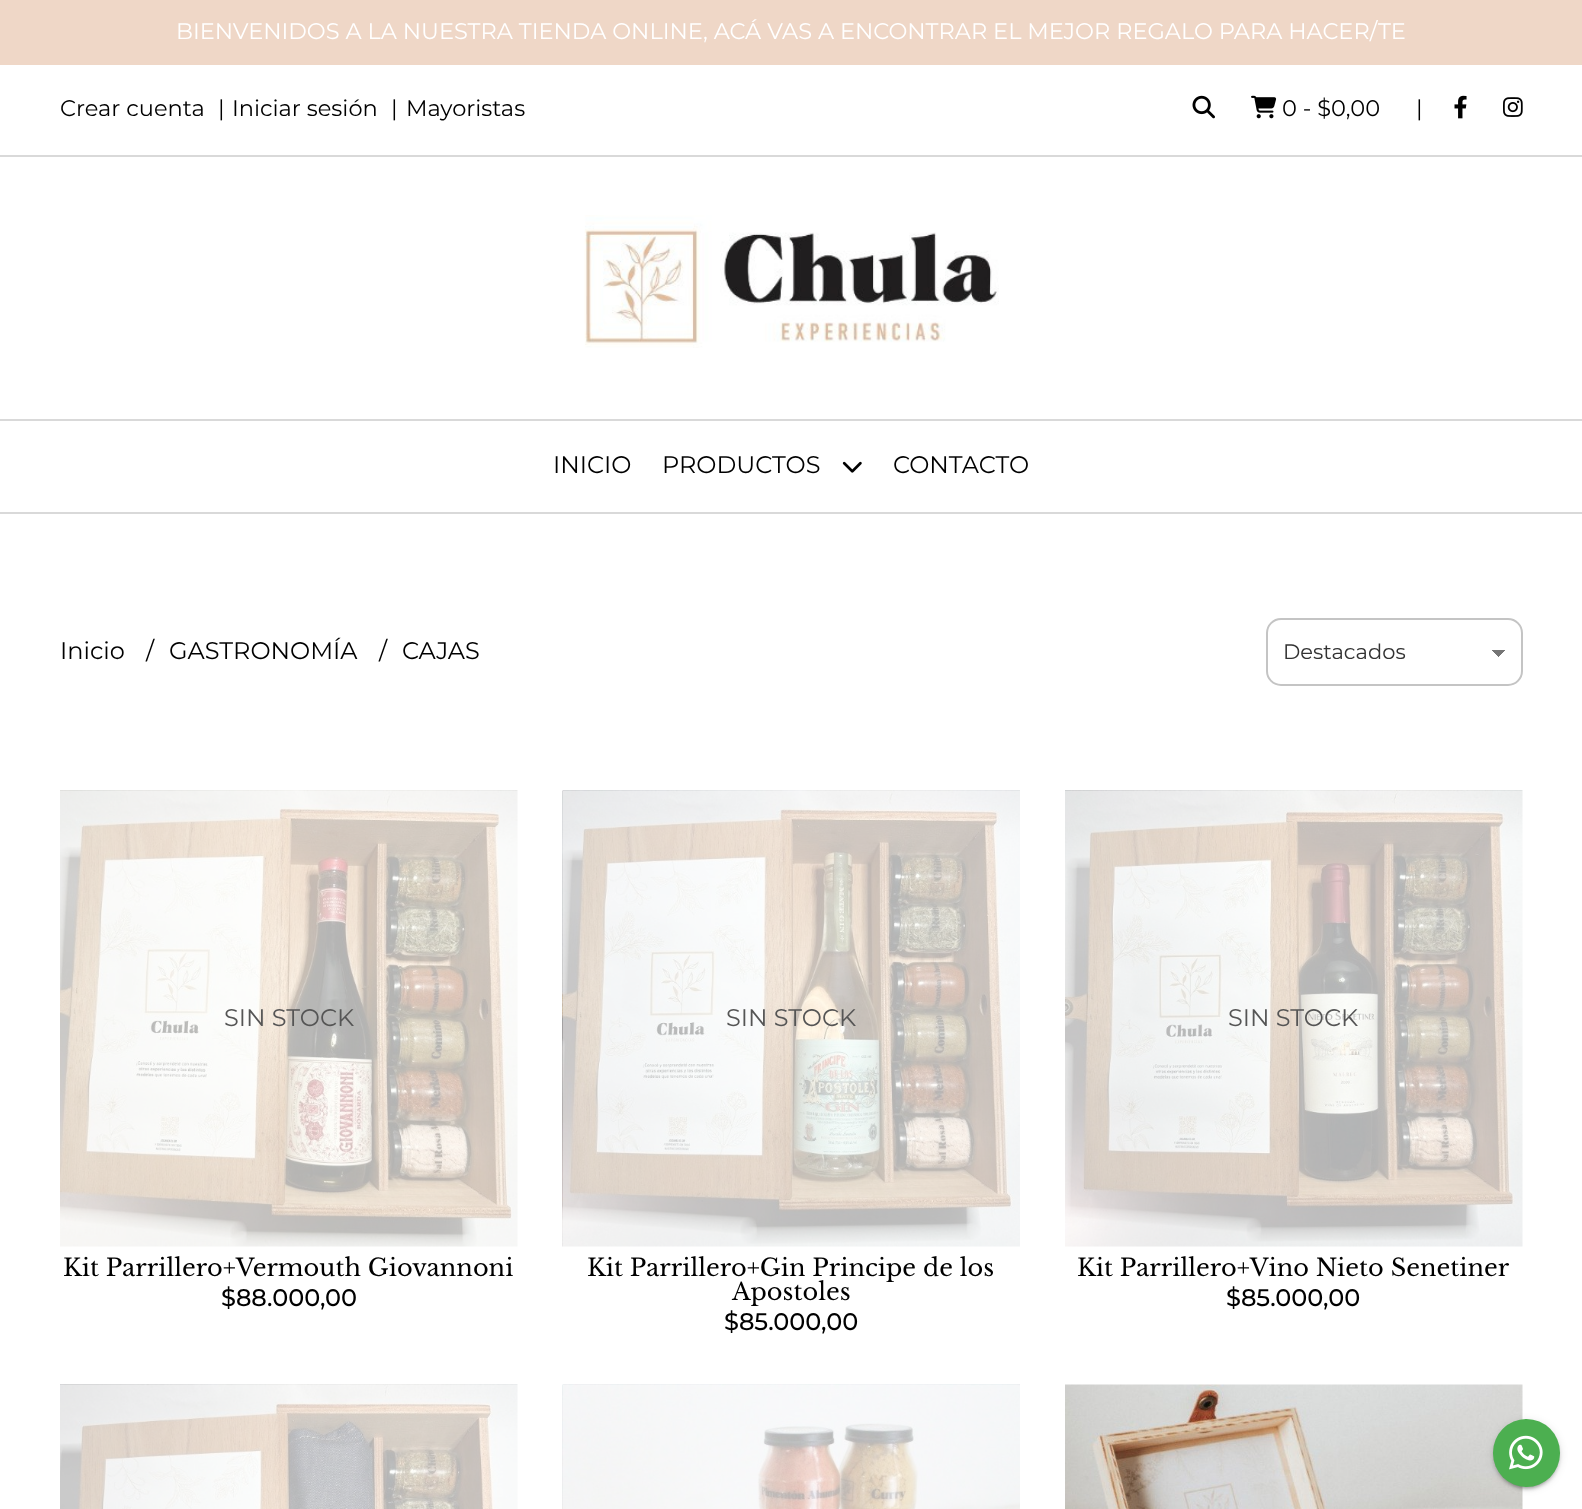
<?xml version="1.0" encoding="UTF-8"?>
<svg xmlns="http://www.w3.org/2000/svg" width="1582" height="1509">
    <defs>
        <linearGradient id="g1" gradientUnits="userSpaceOnUse" x1="1499" y1="650" x2="1506" y2="657"><stop offset="0.5" stop-color="#757575"/><stop offset="0.5" stop-color="#FFFFFF"/></linearGradient>
        <linearGradient id="g2" gradientUnits="userSpaceOnUse" x1="1491" y1="657" x2="1499" y2="650"><stop offset="0.5" stop-color="#FFFFFF"/><stop offset="0.5" stop-color="#757575"/></linearGradient>
        <filter id="blur1" x="-50%" y="-200%" width="200%" height="500%"><feGaussianBlur stdDeviation="1"/></filter>
        <filter id="blur2" x="-50%" y="-200%" width="200%" height="500%"><feGaussianBlur stdDeviation="4"/></filter>
        <filter id="blur3" x="-50%" y="-200%" width="200%" height="500%"><feGaussianBlur stdDeviation="1.5"/></filter>
    </defs>
    <rect width="100%" height="100%" fill="#FFFFFF"/>
    <rect x="0" y="0" width="1582" height="65" fill="#EFD7C7"/>
    <text x="176" y="39" font-family="Montserrat" font-size="22.5" fill="#FFFFFF">BIENVENIDOS A LA NUESTRA TIENDA ONLINE, ACÁ VAS A ENCONTRAR EL MEJOR REGALO PARA HACER/TE</text>
    <rect x="0" y="155" width="1582" height="2" fill="#D9D9D9"/>
    <text x="60" y="116" font-family="Montserrat" font-size="22.5" fill="#000000">Crear cuenta</text>
    <text x="218" y="116" font-family="Montserrat" font-size="22.5" fill="#000000">|</text>
    <text x="232" y="116" font-family="Montserrat" font-size="22.5" fill="#000000">Iniciar sesión</text>
    <text x="391" y="116" font-family="Montserrat" font-size="22.5" fill="#000000">|</text>
    <text x="406" y="116" font-family="Montserrat" font-size="22.5" fill="#000000">Mayoristas</text>
    <image x="1192" y="95" width="23" height="24" href="img_01.png"/>
    <image x="1251" y="95" width="26" height="24" href="img_02.png"/>
    <text x="1282" y="116" font-family="Montserrat" font-size="22.5" fill="#000000">0 - $0,00</text>
    <text x="1416" y="116" font-family="Montserrat" font-size="22.5" fill="#000000">|</text>
    <image x="1454" y="95" width="13" height="24" href="img_03.png"/>
    <image x="1503" y="97" width="20" height="20" href="img_04.png"/>
    <image x="584" y="215" width="415" height="133" href="img_05.png"/>
    <rect x="0" y="419" width="1582" height="2" fill="#D9D9D9"/>
    <rect x="0" y="512" width="1582" height="2" fill="#D9D9D9"/>
    <text x="553" y="473" font-family="Montserrat" font-size="24" fill="#000000">INICIO</text>
    <text x="662" y="473" font-family="Montserrat" font-size="24" fill="#000000">PRODUCTOS</text>
    <image x="842" y="461" width="20" height="12" href="img_06.png"/>
    <text x="893" y="473" font-family="Montserrat" font-size="24" fill="#000000">CONTACTO</text>
    <text x="60" y="659" font-family="Montserrat" font-size="24" fill="#000000">Inicio</text>
    <text x="146" y="659" font-family="Montserrat" font-size="24" fill="#000000">/</text>
    <text x="169" y="659" font-family="Montserrat" font-size="24" fill="#000000">GASTRONOMÍA</text>
    <text x="379" y="659" font-family="Montserrat" font-size="24" fill="#000000">/</text>
    <text x="402" y="659" font-family="Montserrat" font-size="24" fill="#000000">CAJAS</text>
    <rect x="1499" y="650" width="7" height="7" fill="url(#g1)"/>
    <rect x="1491" y="650" width="8" height="7" fill="url(#g2)"/>
    <rect x="1267" y="619" width="255" height="66" rx="14" fill="none" stroke="#C4C4C4" stroke-width="2"/>
    <text x="1283" y="659" font-family="Montserrat" font-size="21" fill="#333333">Destacados</text>
    <image x="60" y="790" width="458" height="457" href="img_07.png"/>
    <text x="224" y="1026" font-family="Montserrat" font-size="24" fill="#555555">SIN STOCK</text>
    <text x="63" y="1276" font-family="Libre Baskerville" font-size="24" fill="#000000">Kit Parrillero+Vermouth Giovannoni</text>
    <text x="221" y="1306" font-family="Montserrat" font-size="24" font-weight="500" fill="#000000">$88.000,00</text>
    <image x="562" y="790" width="458" height="457" href="img_08.png"/>
    <text x="726" y="1026" font-family="Montserrat" font-size="24" fill="#555555">SIN STOCK</text>
    <text x="587" y="1276" font-family="Libre Baskerville" font-size="24" fill="#000000">Kit Parrillero+Gin Principe de los</text>
    <text x="732" y="1300" font-family="Libre Baskerville" font-size="24" fill="#000000">Apostoles</text>
    <text x="724" y="1330" font-family="Montserrat" font-size="24" font-weight="500" fill="#000000">$85.000,00</text>
    <image x="1065" y="790" width="458" height="457" href="img_09.png"/>
    <text x="1228" y="1026" font-family="Montserrat" font-size="24" fill="#555555">SIN STOCK</text>
    <text x="1077" y="1276" font-family="Libre Baskerville" font-size="24" fill="#000000">Kit Parrillero+Vino Nieto Senetiner</text>
    <text x="1226" y="1306" font-family="Montserrat" font-size="24" font-weight="500" fill="#000000">$85.000,00</text>
    <image x="60" y="1384" width="458" height="125" href="img_10.png"/>
    <image x="562" y="1384" width="458" height="125" href="img_11.png"/>
    <image x="1065" y="1384" width="458" height="125" href="img_12.png"/>
    <rect x="1496" y="1427" width="61" height="61" rx="30.5" fill="#000000" fill-opacity="0.2" filter="url(#blur1)"/>
    <rect x="1493" y="1421" width="67" height="67" rx="33.5" fill="#000000" fill-opacity="0.12" filter="url(#blur2)"/>
    <rect x="1493" y="1422" width="67" height="68" rx="33.5" fill="#000000" fill-opacity="0.14" filter="url(#blur3)"/>
    <rect x="1493" y="1419" width="67" height="68" rx="33.5" fill="#4CAF50"/>
    <image x="1509" y="1435" width="34" height="35" href="img_13.png"/>
</svg>
